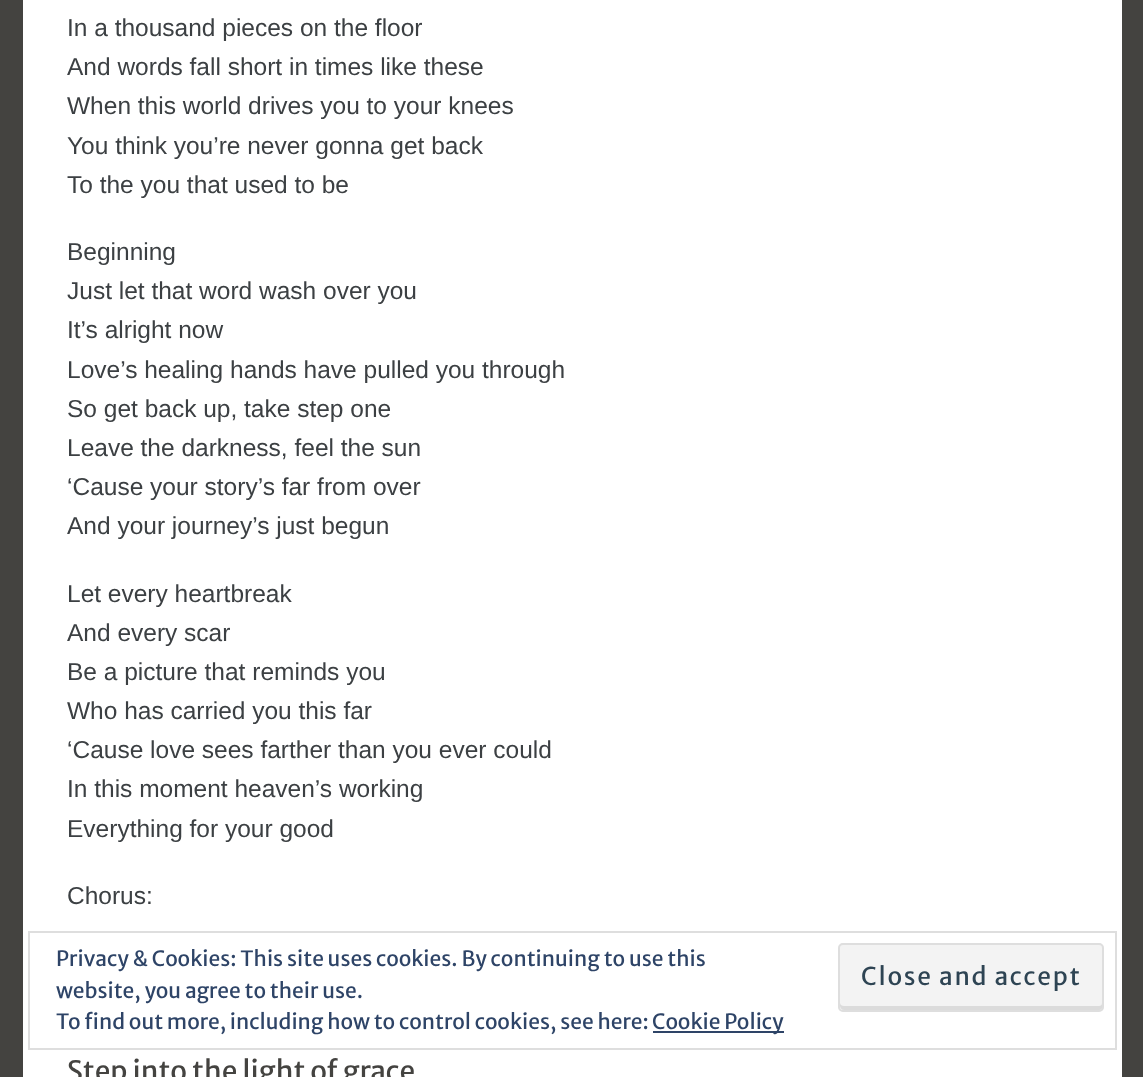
<?xml version="1.0" encoding="UTF-8"?>
<svg xmlns="http://www.w3.org/2000/svg" width="1143" height="1077">
    <rect width="100%" height="100%" fill="#444340"/>
    <rect x="23" y="0" width="1099" height="1077" fill="#FFFFFF"/>
    <text font-family="Liberation Sans" font-size="24.5" fill="#3C4043">
        <tspan x="67" y="36">In a thousand pieces on the floor</tspan>
        <tspan x="67" y="75">And words fall short in times like these</tspan>
        <tspan x="67" y="114">When this world drives you to your knees</tspan>
        <tspan x="67" y="154">You think you’re never gonna get back</tspan>
        <tspan x="67" y="193">To the you that used to be</tspan>
    </text>
    <text font-family="Liberation Sans" font-size="24.5" fill="#3C4043">
        <tspan x="67" y="260">Beginning</tspan>
        <tspan x="67" y="299">Just let that word wash over you</tspan>
        <tspan x="67" y="338">It’s alright now</tspan>
        <tspan x="67" y="378">Love’s healing hands have pulled you through</tspan>
        <tspan x="67" y="417">So get back up, take step one</tspan>
        <tspan x="67" y="456">Leave the darkness, feel the sun</tspan>
        <tspan x="67" y="495">‘Cause your story’s far from over</tspan>
        <tspan x="67" y="534">And your journey’s just begun</tspan>
    </text>
    <text font-family="Liberation Sans" font-size="24.5" fill="#3C4043">
        <tspan x="67" y="602">Let every heartbreak</tspan>
        <tspan x="67" y="641">And every scar</tspan>
        <tspan x="67" y="680">Be a picture that reminds you</tspan>
        <tspan x="67" y="719">Who has carried you this far</tspan>
        <tspan x="67" y="758">‘Cause love sees farther than you ever could</tspan>
        <tspan x="67" y="797">In this moment heaven’s working</tspan>
        <tspan x="67" y="837">Everything for your good</tspan>
    </text>
    <text x="67" y="904" font-family="Liberation Sans" font-size="24.5" fill="#3C4043">Chorus:</text>
    <text x="67" y="1081" font-family="Merriweather Sans" font-size="28" fill="#444340">Step into the light of grace</text>
    <rect x="29" y="932" width="1087" height="117" fill="none" stroke="#DEDEDE" stroke-width="2"/>
    <text font-family="Merriweather Sans" font-size="21" fill="#2E4467">
        <tspan x="56" y="966">Privacy &amp; Cookies: This site uses cookies. By continuing to use this</tspan>
        <tspan x="56" y="998">website, you agree to their use.</tspan>
    </text>
    <rect x="838" y="943" width="266" height="69" rx="5" fill="#F3F3F3"/>
    <path d="M 840 1003 V 1006 C 840 1008 842 1010 844 1010 H 1099 C 1101 1010 1103 1008 1103 1006 V 949 C 1103 948 1103 947 1102 946 V 1003 C 1102 1005 1101 1006 1099 1006 H 844 C 842 1006 840 1005 840 1003 Z" fill="#DBDBDB"/>
    <rect x="839" y="944" width="264" height="67" rx="4" fill="none" stroke="#DEDEDE" stroke-width="2"/>
    <text x="861" y="985" font-family="Merriweather Sans" font-size="24.5" letter-spacing="1.75" fill="#2E4453">Close and accept</text>
    <text x="56" y="1029" font-family="Merriweather Sans" font-size="21" fill="#2E4467">To find out more, including how to control cookies, see here:</text>
    <rect x="653" y="1031" width="131" height="2" fill="#2E4467"/>
    <text x="652" y="1029" font-family="Merriweather Sans" font-size="21" fill="#2E4467">Cookie Policy</text>
</svg>
